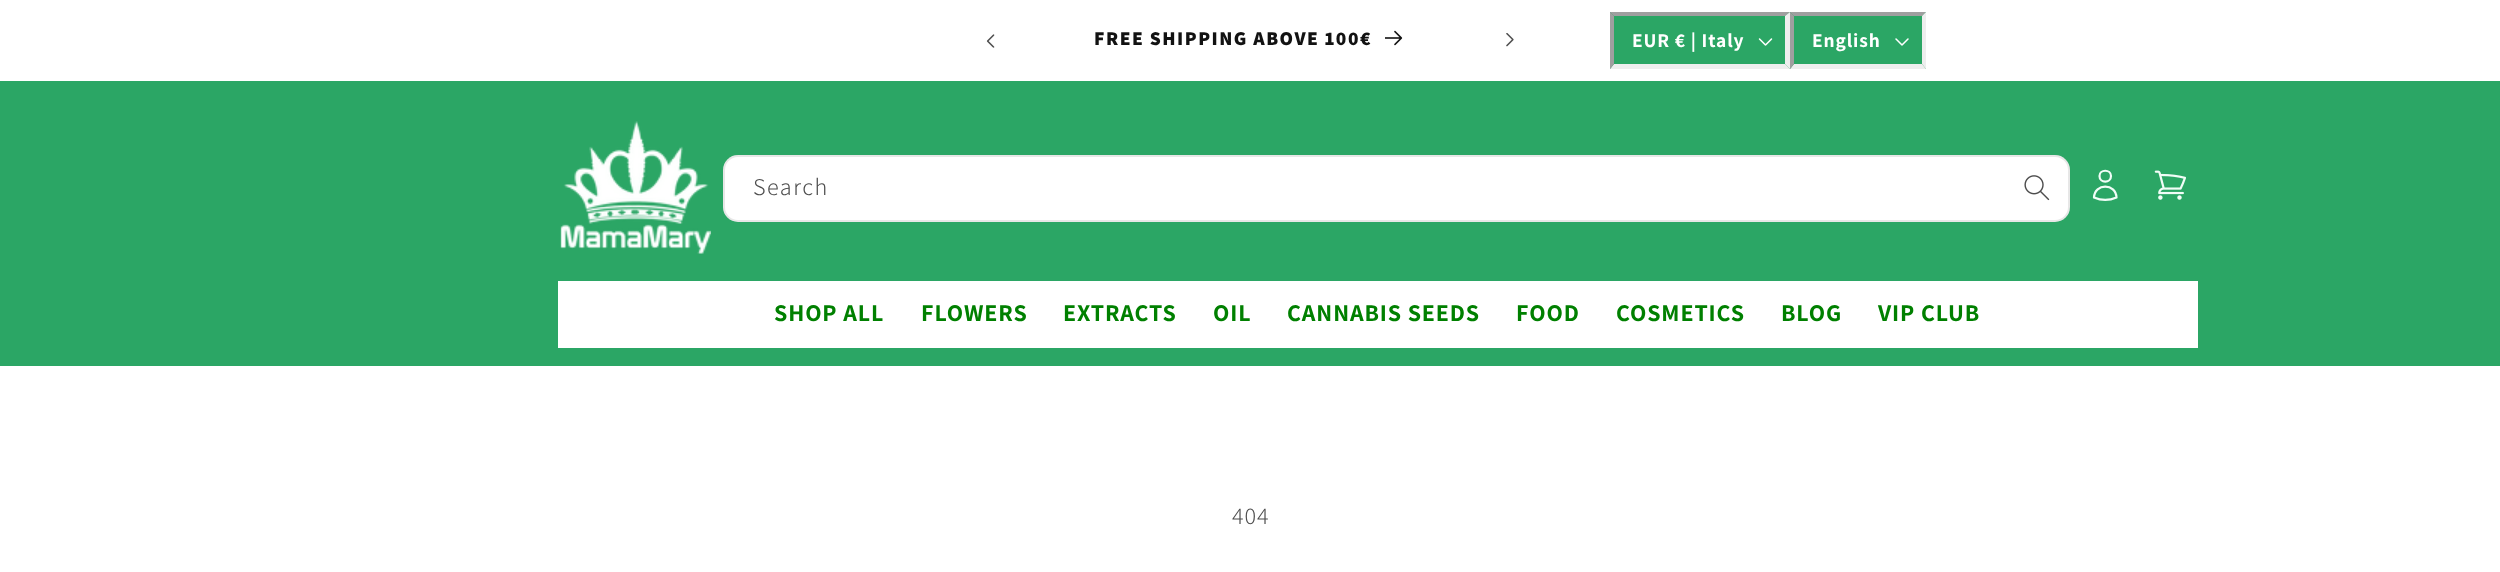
<?xml version="1.0" encoding="UTF-8"?>
<svg xmlns="http://www.w3.org/2000/svg" width="2500" height="572">
    <rect width="100%" height="100%" fill="#FFFFFF"/>
    <image x="986" y="34" width="9" height="14" href="img_01.png"/>
    <text x="1094" y="45" font-family="Assistant" font-size="19.5" font-weight="800" letter-spacing="1.5" fill="#121212">FREE SHIPPING ABOVE 100€</text>
    <image x="1385" y="30" width="18" height="16" href="img_02.png"/>
    <image x="1506" y="33" width="8" height="14" href="img_03.png"/>
    <rect x="1610" y="12" width="316" height="57" fill="#2BA665"/>
    <path d="M 1610 12 H 1790 L 1785 16 H 1614 Z" fill="#9F9F9F"/>
    <path d="M 1790 12 V 69 L 1785 64 V 16 Z" fill="#EEEEEE"/>
    <path d="M 1790 69 H 1610 L 1614 64 H 1785 Z" fill="#EEEEEE"/>
    <path d="M 1610 69 V 12 L 1614 16 V 64 Z" fill="#9F9F9F"/>
    <text x="1632" y="47" font-family="Assistant" font-size="19.5" font-weight="700" letter-spacing="0.9" fill="#FFFFFF">EUR € | Italy</text>
    <image x="1758" y="38" width="15" height="8" href="img_04.png"/>
    <path d="M 1790 12 H 1926 L 1922 16 H 1794 Z" fill="#9F9F9F"/>
    <path d="M 1926 12 V 69 L 1922 64 V 16 Z" fill="#EEEEEE"/>
    <path d="M 1926 69 H 1790 L 1794 64 H 1922 Z" fill="#EEEEEE"/>
    <path d="M 1790 69 V 12 L 1794 16 V 64 Z" fill="#9F9F9F"/>
    <text x="1812" y="47" font-family="Assistant" font-size="19.5" font-weight="700" letter-spacing="0.9" fill="#FFFFFF">English</text>
    <image x="1895" y="38" width="14" height="8" href="img_05.png"/>
    <rect x="0" y="81" width="2500" height="285" fill="#2BA665"/>
    <image x="560" y="121" width="151" height="133" href="img_06.png"/>
    <rect x="723" y="155" width="1347" height="67" rx="15" fill="#FFFFFF"/>
    <rect x="724" y="156" width="1345" height="65" rx="14" fill="none" stroke="#121212" stroke-opacity="0.1" stroke-width="2"/>
    <text x="753" y="195" font-family="Assistant" font-size="24" font-weight="300" letter-spacing="1.5" fill="#4D4D4D">Search</text>
    <image x="2024" y="175" width="26" height="26" href="img_07.png"/>
    <path d="M 2111 176 C 2111 183.5 2099.5 183.5 2099.5 176 C 2099.5 169 2111 169 2111 176 Z M 2094 197.5 C 2094.5 183 2116 183 2116.5 197.5 C 2109.5 200.5 2101 200.5 2094 197.5 Z" fill="none" stroke="#F1FDF7" stroke-width="2.2" stroke-linecap="round" stroke-linejoin="round"/>
    <image x="2154" y="170" width="32" height="30" href="img_08.png"/>
    <rect x="558" y="281" width="1640" height="67" fill="#FFFFFF"/>
    <text x="774" y="321" font-family="Assistant" font-size="24" font-weight="700" letter-spacing="0.9" fill="#008000">SHOP ALL</text>
    <text x="921" y="321" font-family="Assistant" font-size="24" font-weight="700" letter-spacing="0.9" fill="#008000">FLOWERS</text>
    <text x="1063" y="321" font-family="Assistant" font-size="24" font-weight="700" letter-spacing="0.9" fill="#008000">EXTRACTS</text>
    <text x="1213" y="321" font-family="Assistant" font-size="24" font-weight="700" letter-spacing="0.9" fill="#008000">OIL</text>
    <text x="1287" y="321" font-family="Assistant" font-size="24" font-weight="700" letter-spacing="0.9" fill="#008000">CANNABIS SEEDS</text>
    <text x="1516" y="321" font-family="Assistant" font-size="24" font-weight="700" letter-spacing="0.9" fill="#008000">FOOD</text>
    <text x="1616" y="321" font-family="Assistant" font-size="24" font-weight="700" letter-spacing="0.9" fill="#008000">COSMETICS</text>
    <text x="1781" y="321" font-family="Assistant" font-size="24" font-weight="700" letter-spacing="0.9" fill="#008000">BLOG</text>
    <text x="1878" y="321" font-family="Assistant" font-size="24" font-weight="700" letter-spacing="0.9" fill="#008000">VIP CLUB</text>
    <text x="1232" y="524" font-family="Assistant" font-size="24" font-weight="300" letter-spacing="0.9" fill="#4D4D4D">404</text>
</svg>
